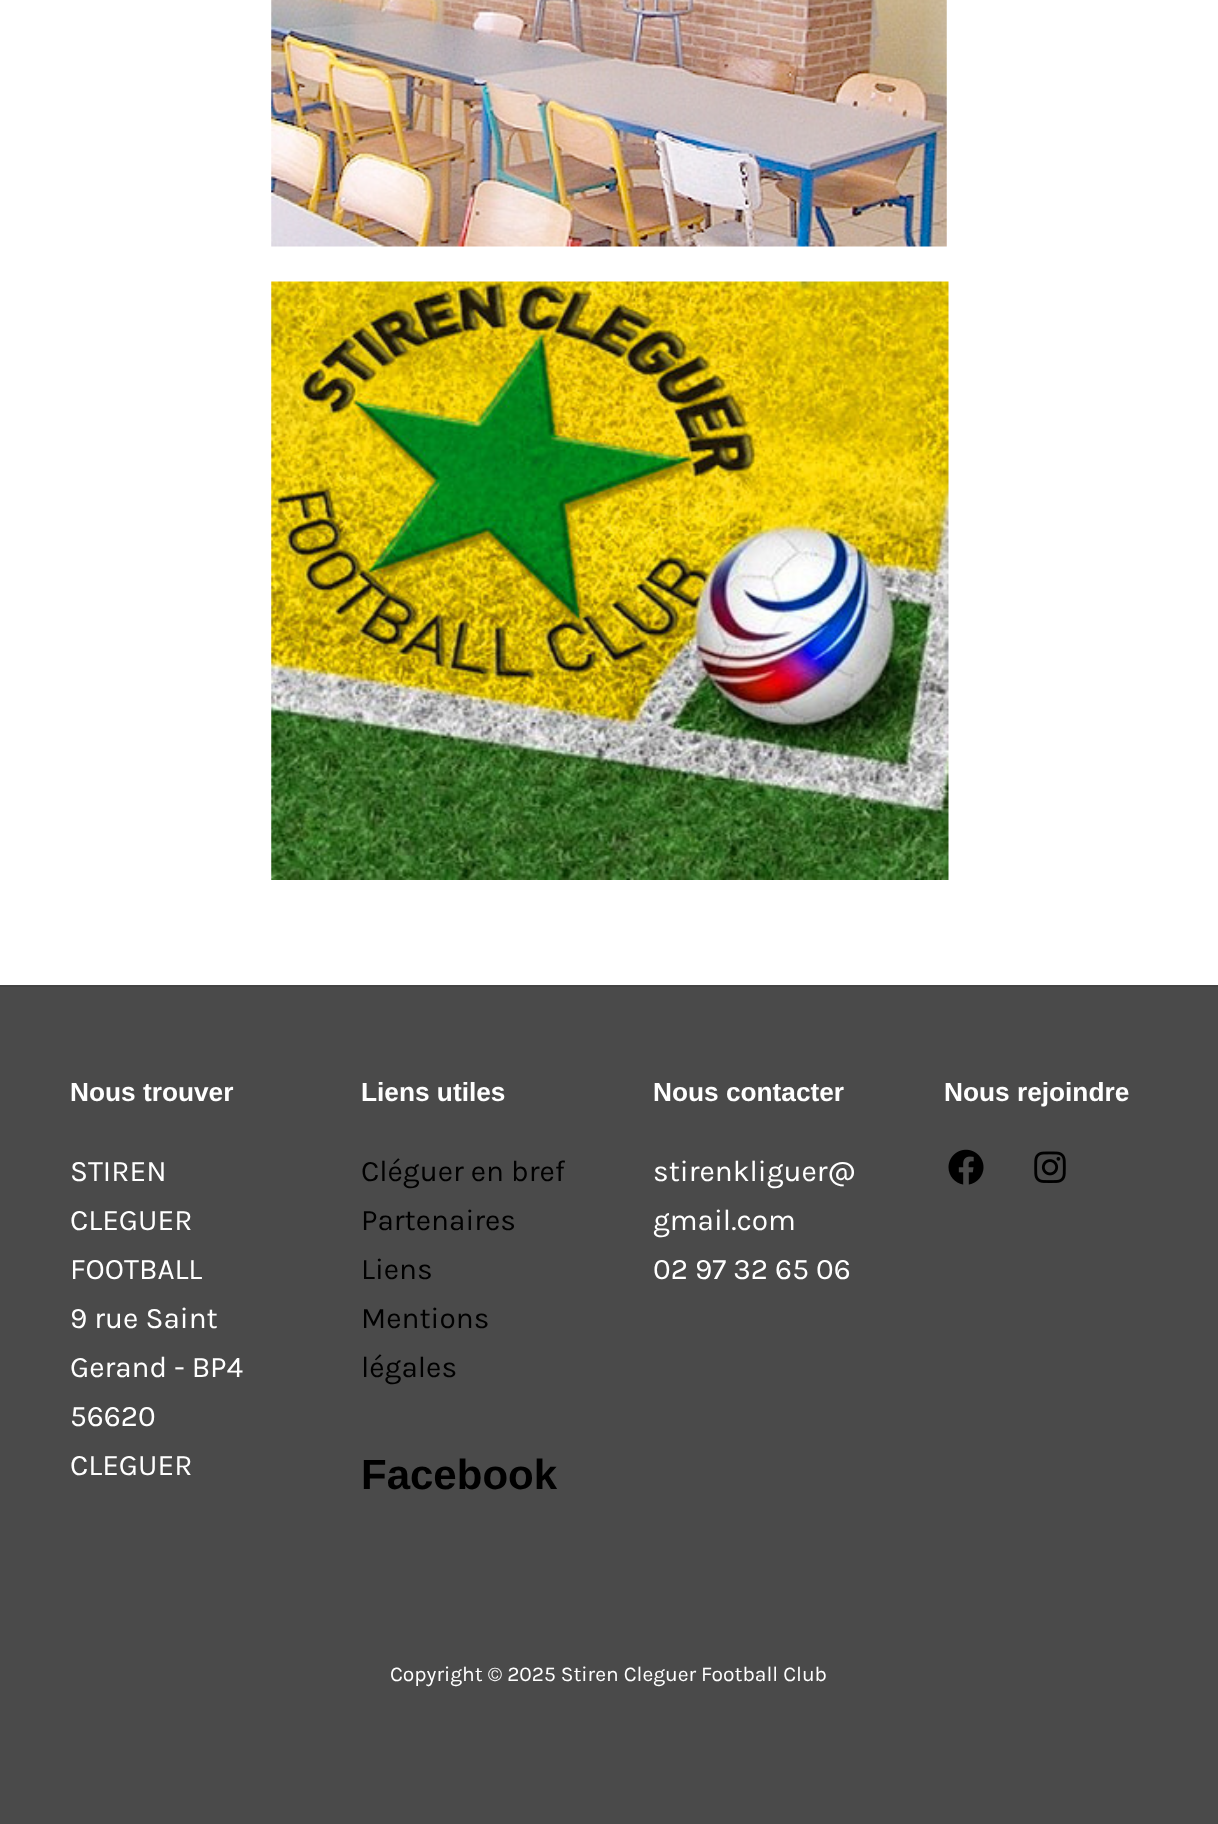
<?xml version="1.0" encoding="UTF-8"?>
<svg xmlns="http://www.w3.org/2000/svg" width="1218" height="1824">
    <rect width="100%" height="100%" fill="#FFFFFF"/>
    <image x="271" y="0" width="676" height="247" href="img_01.png"/>
    <image x="271" y="281" width="678" height="599" href="img_02.png"/>
    <rect x="0" y="987" width="1218" height="837" fill="#4A4A4A"/>
    <rect x="0" y="985" width="1218" height="2" fill="#434343"/>
    <text x="70" y="1101" font-family="Liberation Sans" font-size="26.25" font-weight="700" fill="#FFFFFF">Nous trouver</text>
    <text font-family="Karla" font-size="29.75" fill="#FFFFFF">
        <tspan x="70" y="1181">STIREN</tspan>
        <tspan x="70" y="1230">CLEGUER</tspan>
        <tspan x="70" y="1279">FOOTBALL</tspan>
        <tspan x="70" y="1328">9 rue Saint</tspan>
        <tspan x="70" y="1377">Gerand - BP4</tspan>
        <tspan x="70" y="1426">56620</tspan>
        <tspan x="70" y="1475">CLEGUER</tspan>
    </text>
    <text x="361" y="1101" font-family="Liberation Sans" font-size="26.25" font-weight="700" fill="#FFFFFF">Liens utiles</text>
    <text font-family="Karla" font-size="29.75" fill="#000000">
        <tspan x="361" y="1181">Cléguer en bref</tspan>
        <tspan x="361" y="1230">Partenaires</tspan>
        <tspan x="361" y="1279">Liens</tspan>
        <tspan x="361" y="1328">Mentions</tspan>
        <tspan x="361" y="1377">légales</tspan>
    </text>
    <text x="361" y="1489" font-family="Liberation Sans" font-size="42" font-weight="700" fill="#000000">Facebook</text>
    <text x="653" y="1101" font-family="Liberation Sans" font-size="26.25" font-weight="700" fill="#FFFFFF">Nous contacter</text>
    <text font-family="Karla" font-size="29.75" fill="#FFFFFF">
        <tspan x="653" y="1181">stirenkliguer@</tspan>
        <tspan x="653" y="1230">gmail.com</tspan>
        <tspan x="653" y="1279">02 97 32 65 06</tspan>
    </text>
    <text x="944" y="1101" font-family="Liberation Sans" font-size="26.25" font-weight="700" fill="#FFFFFF">Nous rejoindre</text>
    <image x="948" y="1149" width="36" height="36" href="img_03.png"/>
    <image x="1034" y="1151" width="32" height="32" href="img_04.png"/>
    <text x="390" y="1681" font-family="Karla" font-size="21" fill="#FFFFFF">Copyright © 2025 Stiren Cleguer Football Club</text>
</svg>
